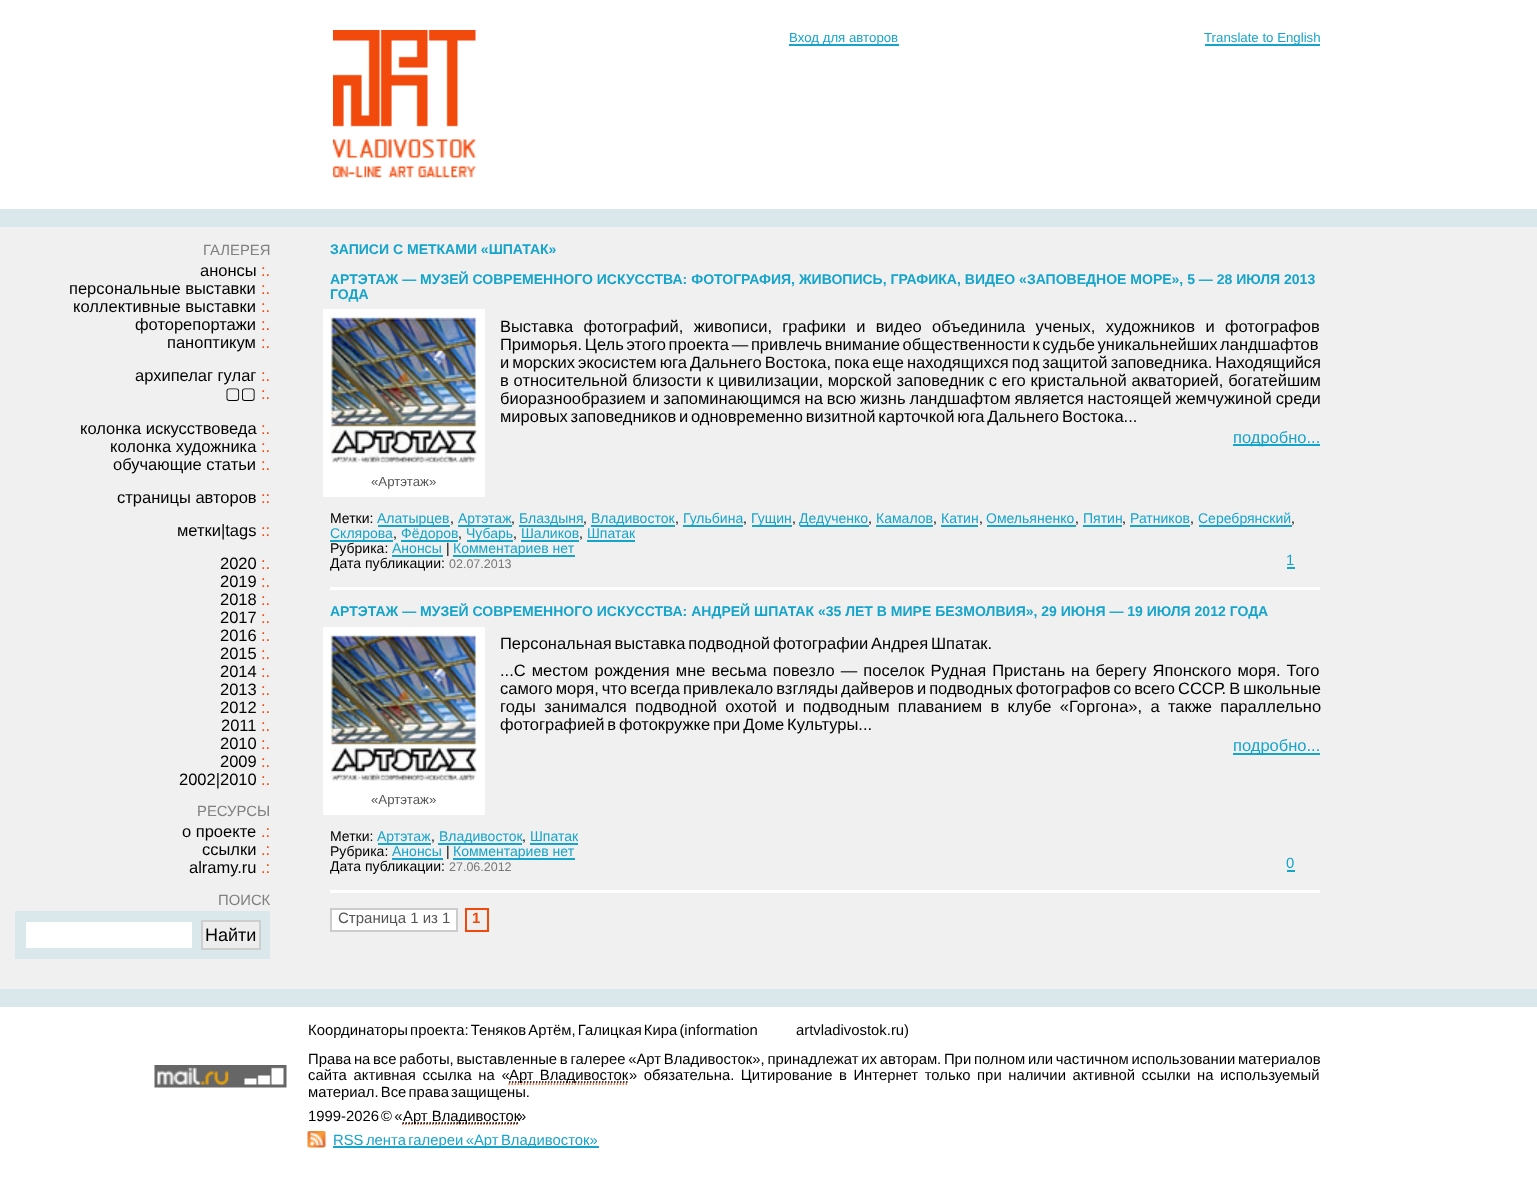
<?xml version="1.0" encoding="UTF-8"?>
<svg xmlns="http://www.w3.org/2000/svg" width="1537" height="1180">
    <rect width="100%" height="100%" fill="#FFFFFF"/>
    <image x="333" y="30" width="143" height="148" href="img_01.png"/>
    <rect x="789" y="44" width="110" height="2" fill="#15A4CA"/>
    <text x="789" y="42" font-family="Liberation Sans" font-size="13.25" fill="#15A4CA">Вход для авторов</text>
    <rect x="1205" y="44" width="115" height="2" fill="#15A4CA"/>
    <text x="1204" y="42" font-family="Liberation Sans" font-size="13.25" fill="#15A4CA">Translate to English</text>
    <rect x="0" y="227" width="1537" height="762" fill="#F0F0F0"/>
    <rect x="0" y="209" width="1537" height="18" fill="#DAE8EB"/>
    <rect x="0" y="989" width="1537" height="18" fill="#DAE8EB"/>
    <text x="203" y="255" font-family="Liberation Sans" font-size="14.85" fill="#808080">ГАЛЕРЕЯ</text>
    <text x="200" y="276" font-family="Liberation Sans" font-size="16.5" fill="#000000">анонсы</text>
    <text x="261" y="276" font-family="Liberation Sans" font-size="16.5" fill="#F2490C">:.</text>
    <text x="69" y="294" font-family="Liberation Sans" font-size="16.5" fill="#000000">персональные выставки</text>
    <text x="261" y="294" font-family="Liberation Sans" font-size="16.5" fill="#F2490C">:.</text>
    <text x="73" y="312" font-family="Liberation Sans" font-size="16.5" fill="#000000">коллективные выставки</text>
    <text x="261" y="312" font-family="Liberation Sans" font-size="16.5" fill="#F2490C">:.</text>
    <text x="135" y="330" font-family="Liberation Sans" font-size="16.5" fill="#000000">фоторепортажи</text>
    <text x="261" y="330" font-family="Liberation Sans" font-size="16.5" fill="#F2490C">:.</text>
    <text x="167" y="348" font-family="Liberation Sans" font-size="16.5" fill="#000000">паноптикум</text>
    <text x="261" y="348" font-family="Liberation Sans" font-size="16.5" fill="#F2490C">:.</text>
    <text x="135" y="381" font-family="Liberation Sans" font-size="16.5" fill="#000000">архипелаг гулаг</text>
    <text x="261" y="381" font-family="Liberation Sans" font-size="16.5" fill="#F2490C">:.</text>
    <text x="225" y="399" font-family="DejaVu Sans" font-size="16.5" fill="#000000">▢▢</text>
    <text x="261" y="399" font-family="Liberation Sans" font-size="16.5" fill="#F2490C">:.</text>
    <text x="80" y="434" font-family="Liberation Sans" font-size="16.5" fill="#000000">колонка искусствоведа</text>
    <text x="261" y="434" font-family="Liberation Sans" font-size="16.5" fill="#F2490C">:.</text>
    <text x="110" y="452" font-family="Liberation Sans" font-size="16.5" fill="#000000">колонка художника</text>
    <text x="261" y="452" font-family="Liberation Sans" font-size="16.5" fill="#F2490C">:.</text>
    <text x="113" y="470" font-family="Liberation Sans" font-size="16.5" fill="#000000">обучающие статьи</text>
    <text x="261" y="470" font-family="Liberation Sans" font-size="16.5" fill="#F2490C">:.</text>
    <text x="117" y="503" font-family="Liberation Sans" font-size="16.5" fill="#000000">страницы авторов</text>
    <text x="261" y="503" font-family="Liberation Sans" font-size="16.5" fill="#F2490C">::</text>
    <text x="177" y="536" font-family="Liberation Sans" font-size="16.5" fill="#000000">метки|tags</text>
    <text x="261" y="536" font-family="Liberation Sans" font-size="16.5" fill="#F2490C">::</text>
    <text x="220" y="569" font-family="Liberation Sans" font-size="16.5" fill="#000000">2020</text>
    <text x="261" y="569" font-family="Liberation Sans" font-size="16.5" fill="#F2490C">:.</text>
    <text x="220" y="587" font-family="Liberation Sans" font-size="16.5" fill="#000000">2019</text>
    <text x="261" y="587" font-family="Liberation Sans" font-size="16.5" fill="#F2490C">:.</text>
    <text x="220" y="605" font-family="Liberation Sans" font-size="16.5" fill="#000000">2018</text>
    <text x="261" y="605" font-family="Liberation Sans" font-size="16.5" fill="#F2490C">:.</text>
    <text x="220" y="623" font-family="Liberation Sans" font-size="16.5" fill="#000000">2017</text>
    <text x="261" y="623" font-family="Liberation Sans" font-size="16.5" fill="#F2490C">:.</text>
    <text x="220" y="641" font-family="Liberation Sans" font-size="16.5" fill="#000000">2016</text>
    <text x="261" y="641" font-family="Liberation Sans" font-size="16.5" fill="#F2490C">:.</text>
    <text x="220" y="659" font-family="Liberation Sans" font-size="16.5" fill="#000000">2015</text>
    <text x="261" y="659" font-family="Liberation Sans" font-size="16.5" fill="#F2490C">:.</text>
    <text x="220" y="677" font-family="Liberation Sans" font-size="16.5" fill="#000000">2014</text>
    <text x="261" y="677" font-family="Liberation Sans" font-size="16.5" fill="#F2490C">:.</text>
    <text x="220" y="695" font-family="Liberation Sans" font-size="16.5" fill="#000000">2013</text>
    <text x="261" y="695" font-family="Liberation Sans" font-size="16.5" fill="#F2490C">:.</text>
    <text x="220" y="713" font-family="Liberation Sans" font-size="16.5" fill="#000000">2012</text>
    <text x="261" y="713" font-family="Liberation Sans" font-size="16.5" fill="#F2490C">:.</text>
    <text x="221" y="731" font-family="Liberation Sans" font-size="16.5" fill="#000000">2011</text>
    <text x="261" y="731" font-family="Liberation Sans" font-size="16.5" fill="#F2490C">:.</text>
    <text x="220" y="749" font-family="Liberation Sans" font-size="16.5" fill="#000000">2010</text>
    <text x="261" y="749" font-family="Liberation Sans" font-size="16.5" fill="#F2490C">:.</text>
    <text x="220" y="767" font-family="Liberation Sans" font-size="16.5" fill="#000000">2009</text>
    <text x="261" y="767" font-family="Liberation Sans" font-size="16.5" fill="#F2490C">:.</text>
    <text x="179" y="785" font-family="Liberation Sans" font-size="16.5" fill="#000000">2002|2010</text>
    <text x="261" y="785" font-family="Liberation Sans" font-size="16.5" fill="#F2490C">:.</text>
    <text x="197" y="816" font-family="Liberation Sans" font-size="14.85" fill="#808080">РЕСУРСЫ</text>
    <text x="182" y="837" font-family="Liberation Sans" font-size="16.5" fill="#000000">о проекте</text>
    <text x="261" y="837" font-family="Liberation Sans" font-size="16.5" fill="#F2490C">.:</text>
    <text x="202" y="855" font-family="Liberation Sans" font-size="16.5" fill="#000000">ссылки</text>
    <text x="261" y="855" font-family="Liberation Sans" font-size="16.5" fill="#F2490C">.:</text>
    <text x="189" y="873" font-family="Liberation Sans" font-size="16.5" fill="#000000">alramy.ru</text>
    <text x="261" y="873" font-family="Liberation Sans" font-size="16.5" fill="#F2490C">.:</text>
    <text x="218" y="905" font-family="Liberation Sans" font-size="14.85" fill="#808080">ПОИСК</text>
    <rect x="15" y="911" width="255" height="48" fill="#DAE8EB"/>
    <rect x="26" y="922" width="166" height="26" fill="#FFFFFF"/>
    <rect x="202" y="921" width="58" height="28" fill="#EDEDED" stroke="#CECECE" stroke-width="2"/>
    <text x="205" y="941" font-family="Liberation Sans" font-size="18" fill="#000000">Найти</text>
    <text x="330" y="254" font-family="Liberation Sans" font-size="14.02" font-weight="700" fill="#15A4CA">ЗАПИСИ С МЕТКАМИ «ШПАТАК»</text>
    <rect x="330" y="587" width="990" height="3" fill="#FFFFFF"/>
    <text font-family="Liberation Sans" font-size="14.02" font-weight="700" fill="#15A4CA">
        <tspan x="330" y="284">АРТЭТАЖ — МУЗЕЙ СОВРЕМЕННОГО ИСКУССТВА: ФОТОГРАФИЯ, ЖИВОПИСЬ, ГРАФИКА, ВИДЕО «ЗАПОВЕДНОЕ МОРЕ», 5 — 28 ИЮЛЯ 2013</tspan>
        <tspan x="330" y="299">ГОДА</tspan>
    </text>
    <text font-family="Liberation Sans" font-size="16.5" fill="#000000">
        <tspan x="500" y="332" word-spacing="5.75">Выставка фотографий, живописи, графики и видео объединила ученых, художников и фотографов</tspan>
        <tspan x="500" y="350" word-spacing="-1.9">Приморья. Цель этого проекта — привлечь внимание общественности к судьбе уникальнейших ландшафтов</tspan>
        <tspan x="500" y="368" word-spacing="-1.5">и морских экосистем юга Дальнего Востока, пока еще находящихся под защитой заповедника. Находящийся</tspan>
        <tspan x="500" y="386" word-spacing="0.25">в относительной близости к цивилизации, морской заповедник с его кристальной акваторией, богатейшим</tspan>
        <tspan x="500" y="404" word-spacing="-0.6">биоразнообразием и запоминающимся на всю жизнь ландшафтом является настоящей жемчужиной среди</tspan>
        <tspan x="500" y="422" word-spacing="-1.75">мировых заповедников и одновременно визитной карточкой юга Дальнего Востока...</tspan>
    </text>
    <rect x="1233" y="444" width="87" height="2" fill="#15A4CA"/>
    <text x="1233" y="443" font-family="Liberation Sans" font-size="16.5" fill="#15A4CA">подробно...</text>
    <rect x="323" y="309" width="162" height="188" fill="#FFFFFF"/>
    <image x="330" y="316" width="147" height="147" href="img_02.png"/>
    <text x="371" y="486" font-family="Liberation Sans" font-size="13.25" fill="#555555">«Артэтаж»</text>
    <text x="330" y="523" font-family="Liberation Sans" font-size="14.02" fill="#000000">Метки:</text>
    <rect x="378" y="525" width="72" height="2" fill="#15A4CA"/>
    <text x="377" y="523" font-family="Liberation Sans" font-size="14.02" fill="#15A4CA">Алатырцев</text>
    <text x="450" y="523" font-family="Liberation Sans" font-size="14.02" fill="#000000">,</text>
    <rect x="458" y="525" width="54" height="2" fill="#15A4CA"/>
    <text x="458" y="523" font-family="Liberation Sans" font-size="14.02" fill="#15A4CA">Артэтаж</text>
    <text x="511" y="523" font-family="Liberation Sans" font-size="14.02" fill="#000000">,</text>
    <rect x="519" y="525" width="65" height="2" fill="#15A4CA"/>
    <text x="519" y="523" font-family="Liberation Sans" font-size="14.02" fill="#15A4CA">Блаздыня</text>
    <text x="583" y="523" font-family="Liberation Sans" font-size="14.02" fill="#000000">,</text>
    <rect x="591" y="525" width="84" height="2" fill="#15A4CA"/>
    <text x="591" y="523" font-family="Liberation Sans" font-size="14.02" fill="#15A4CA">Владивосток</text>
    <text x="675" y="523" font-family="Liberation Sans" font-size="14.02" fill="#000000">,</text>
    <rect x="683" y="525" width="60" height="2" fill="#15A4CA"/>
    <text x="683" y="523" font-family="Liberation Sans" font-size="14.02" fill="#15A4CA">Гульбина</text>
    <text x="743" y="523" font-family="Liberation Sans" font-size="14.02" fill="#000000">,</text>
    <rect x="752" y="525" width="40" height="2" fill="#15A4CA"/>
    <text x="751" y="523" font-family="Liberation Sans" font-size="14.02" fill="#15A4CA">Гущин</text>
    <text x="792" y="523" font-family="Liberation Sans" font-size="14.02" fill="#000000">,</text>
    <rect x="800" y="525" width="69" height="2" fill="#15A4CA"/>
    <text x="799" y="523" font-family="Liberation Sans" font-size="14.02" fill="#15A4CA">Дедученко</text>
    <text x="868" y="523" font-family="Liberation Sans" font-size="14.02" fill="#000000">,</text>
    <text x="876" y="523" font-family="Liberation Sans" font-size="14.02" fill="#15A4CA">Камалов</text>
    <rect x="876" y="525" width="57" height="2" fill="#15A4CA"/>
    <text x="933" y="523" font-family="Liberation Sans" font-size="14.02" fill="#000000">,</text>
    <text x="941" y="523" font-family="Liberation Sans" font-size="14.02" fill="#15A4CA">Катин</text>
    <rect x="941" y="525" width="37" height="2" fill="#15A4CA"/>
    <text x="979" y="523" font-family="Liberation Sans" font-size="14.02" fill="#000000">,</text>
    <text x="986" y="523" font-family="Liberation Sans" font-size="14.02" fill="#15A4CA">Омельяненко</text>
    <rect x="987" y="525" width="89" height="2" fill="#15A4CA"/>
    <text x="1075" y="523" font-family="Liberation Sans" font-size="14.02" fill="#000000">,</text>
    <text x="1083" y="523" font-family="Liberation Sans" font-size="14.02" fill="#15A4CA">Пятин</text>
    <rect x="1083" y="525" width="39" height="2" fill="#15A4CA"/>
    <text x="1122" y="523" font-family="Liberation Sans" font-size="14.02" fill="#000000">,</text>
    <text x="1130" y="523" font-family="Liberation Sans" font-size="14.02" fill="#15A4CA">Ратников</text>
    <rect x="1130" y="525" width="60" height="2" fill="#15A4CA"/>
    <text x="1190" y="523" font-family="Liberation Sans" font-size="14.02" fill="#000000">,</text>
    <rect x="1199" y="525" width="93" height="2" fill="#15A4CA"/>
    <text x="1198" y="523" font-family="Liberation Sans" font-size="14.02" fill="#15A4CA">Серебрянский</text>
    <text x="1291" y="523" font-family="Liberation Sans" font-size="14.02" fill="#000000">,</text>
    <rect x="330" y="540" width="63" height="2" fill="#15A4CA"/>
    <text x="330" y="538" font-family="Liberation Sans" font-size="14.02" fill="#15A4CA">Склярова</text>
    <text x="393" y="538" font-family="Liberation Sans" font-size="14.02" fill="#000000">,</text>
    <rect x="401" y="540" width="57" height="2" fill="#15A4CA"/>
    <text x="401" y="538" font-family="Liberation Sans" font-size="14.02" fill="#15A4CA">Фёдоров</text>
    <text x="458" y="538" font-family="Liberation Sans" font-size="14.02" fill="#000000">,</text>
    <rect x="467" y="540" width="46" height="2" fill="#15A4CA"/>
    <text x="466" y="538" font-family="Liberation Sans" font-size="14.02" fill="#15A4CA">Чубарь</text>
    <text x="513" y="538" font-family="Liberation Sans" font-size="14.02" fill="#000000">,</text>
    <text x="521" y="538" font-family="Liberation Sans" font-size="14.02" fill="#15A4CA">Шаликов</text>
    <rect x="521" y="540" width="58" height="2" fill="#15A4CA"/>
    <text x="579" y="538" font-family="Liberation Sans" font-size="14.02" fill="#000000">,</text>
    <text x="587" y="538" font-family="Liberation Sans" font-size="14.02" fill="#15A4CA">Шпатак</text>
    <rect x="587" y="540" width="48" height="2" fill="#15A4CA"/>
    <text x="330" y="553" font-family="Liberation Sans" font-size="14.02" fill="#000000">Рубрика:</text>
    <text x="392" y="553" font-family="Liberation Sans" font-size="14.02" fill="#15A4CA">Анонсы</text>
    <rect x="392" y="555" width="51" height="2" fill="#15A4CA"/>
    <text x="446" y="553" font-family="Liberation Sans" font-size="14.02" fill="#000000">|</text>
    <rect x="453" y="555" width="122" height="2" fill="#15A4CA"/>
    <text x="453" y="553" font-family="Liberation Sans" font-size="14.02" fill="#15A4CA">Комментариев нет</text>
    <text x="330" y="568" font-family="Liberation Sans" font-size="14.02" fill="#000000">Дата публикации:</text>
    <text x="449" y="568" font-family="Liberation Sans" font-size="12.5" fill="#777777">02.07.2013</text>
    <text x="1286" y="565" font-family="Liberation Sans" font-size="14.85" fill="#15A4CA">1</text>
    <rect x="1287" y="567" width="8" height="2" fill="#15A4CA"/>
    <rect x="330" y="890" width="990" height="3" fill="#FFFFFF"/>
    <text x="330" y="616" font-family="Liberation Sans" font-size="14.02" font-weight="700" fill="#15A4CA">АРТЭТАЖ — МУЗЕЙ СОВРЕМЕННОГО ИСКУССТВА: АНДРЕЙ ШПАТАК «35 ЛЕТ В МИРЕ БЕЗМОЛВИЯ», 29 ИЮНЯ — 19 ИЮЛЯ 2012 ГОДА</text>
    <text font-family="Liberation Sans" font-size="16.5" fill="#000000">
        <tspan x="500" y="649" word-spacing="-1.75">Персональная выставка подводной фотографии Андрея Шпатак.</tspan>
        <tspan x="500" y="676" word-spacing="1.5">...C местом рождения мне весьма повезло — поселок Рудная Пристань на берегу Японского моря. Того</tspan>
        <tspan x="500" y="694" word-spacing="-1.6">самого моря, что всегда привлекало взгляды дайверов и подводных фотографов со всего СССР. В школьные</tspan>
        <tspan x="500" y="712" word-spacing="3.75">годы занимался подводной охотой и подводным плаванием в клубе «Горгона», а также параллельно</tspan>
        <tspan x="500" y="730" word-spacing="-1.75">фотографией в фотокружке при Доме Культуры...</tspan>
    </text>
    <rect x="1233" y="753" width="87" height="2" fill="#15A4CA"/>
    <text x="1233" y="751" font-family="Liberation Sans" font-size="16.5" fill="#15A4CA">подробно...</text>
    <rect x="323" y="627" width="162" height="188" fill="#FFFFFF"/>
    <image x="330" y="634" width="147" height="147" href="img_02.png"/>
    <text x="371" y="804" font-family="Liberation Sans" font-size="13.25" fill="#555555">«Артэтаж»</text>
    <text x="330" y="841" font-family="Liberation Sans" font-size="14.02" fill="#000000">Метки:</text>
    <rect x="378" y="843" width="53" height="2" fill="#15A4CA"/>
    <text x="377" y="841" font-family="Liberation Sans" font-size="14.02" fill="#15A4CA">Артэтаж</text>
    <text x="431" y="841" font-family="Liberation Sans" font-size="14.02" fill="#000000">,</text>
    <rect x="438" y="843" width="84" height="2" fill="#15A4CA"/>
    <text x="439" y="841" font-family="Liberation Sans" font-size="14.02" fill="#15A4CA">Владивосток</text>
    <text x="522" y="841" font-family="Liberation Sans" font-size="14.02" fill="#000000">,</text>
    <text x="530" y="841" font-family="Liberation Sans" font-size="14.02" fill="#15A4CA">Шпатак</text>
    <rect x="530" y="843" width="48" height="2" fill="#15A4CA"/>
    <text x="330" y="856" font-family="Liberation Sans" font-size="14.02" fill="#000000">Рубрика:</text>
    <text x="392" y="856" font-family="Liberation Sans" font-size="14.02" fill="#15A4CA">Анонсы</text>
    <rect x="392" y="858" width="51" height="2" fill="#15A4CA"/>
    <text x="446" y="856" font-family="Liberation Sans" font-size="14.02" fill="#000000">|</text>
    <rect x="453" y="858" width="122" height="2" fill="#15A4CA"/>
    <text x="453" y="856" font-family="Liberation Sans" font-size="14.02" fill="#15A4CA">Комментариев нет</text>
    <text x="330" y="871" font-family="Liberation Sans" font-size="14.02" fill="#000000">Дата публикации:</text>
    <text x="449" y="871" font-family="Liberation Sans" font-size="12.5" fill="#777777">27.06.2012</text>
    <text x="1286" y="868" font-family="Liberation Sans" font-size="14.85" fill="#15A4CA">0</text>
    <rect x="1287" y="870" width="8" height="2" fill="#15A4CA"/>
    <rect x="331" y="909" width="126" height="22" fill="#FFFFFF" stroke="#CCCCCC" stroke-width="2"/>
    <text x="338" y="923" font-family="Liberation Sans" font-size="15" fill="#555555">Страница 1 из 1</text>
    <rect x="466" y="909" width="22" height="22" fill="none" stroke="#F2490C" stroke-width="2"/>
    <text x="472" y="923" font-family="Liberation Sans" font-size="15" font-weight="700" fill="#F2490C">1</text>
    <image x="154" y="1065" width="133" height="23" href="img_03.png"/>
    <text x="308" y="1035" word-spacing="-2" font-family="Liberation Sans" font-size="14.85" fill="#000000">Координаторы проекта: Теняков Артём, Галицкая Кира (information</text>
    <text x="796" y="1035" font-family="Liberation Sans" font-size="14.85" fill="#000000">artvladivostok.ru)</text>
    <text font-family="Liberation Sans" font-size="14.85" fill="#000000">
        <tspan x="308" y="1064" word-spacing="-1.4">Права на все работы, выставленные в галерее «Арт Владивосток», принадлежат их авторам. При полном или частичном использовании материалов</tspan>
        <tspan x="308" y="1080" word-spacing="2.5">сайта активная ссылка на «</tspan>
    </text>
    <path d="M 508.5 1084 H 628.5" fill="none" stroke="#F2490C" stroke-width="1.5" stroke-dasharray="1.5 1.5"/>
    <path d="M 509 1082 H 629" fill="none" stroke="#000000" stroke-width="1.5" stroke-dasharray="1.5 1.5"/>
    <text x="509" y="1080" word-spacing="2" font-family="Liberation Sans" font-size="14.85" fill="#000000">Арт Владивосток</text>
    <text x="629" y="1080" word-spacing="2.4" font-family="Liberation Sans" font-size="14.85" fill="#000000">» обязательна. Цитирование в Интернет только при наличии активной ссылки на используемый</text>
    <text font-family="Liberation Sans" font-size="14.85" fill="#000000">
        <tspan x="308" y="1097" word-spacing="-2">материал. Все права защищены.</tspan>
        <tspan x="308" y="1121" word-spacing="-2">1999-2026 © «</tspan>
    </text>
    <path d="M 402 1124 H 517.5" fill="none" stroke="#F2490C" stroke-width="1.5" stroke-dasharray="1.5 1.5"/>
    <path d="M 402.5 1123 H 518" fill="none" stroke="#000000" stroke-width="1.5" stroke-dasharray="1.5 1.5"/>
    <text x="403" y="1121" font-family="Liberation Sans" font-size="14.85" fill="#000000">Арт Владивосток</text>
    <text x="518" y="1121" font-family="Liberation Sans" font-size="14.85" fill="#000000">»</text>
    <image x="307" y="1131" width="19" height="17" href="img_04.png"/>
    <rect x="333" y="1146" width="266" height="2" fill="#15A4CA"/>
    <text x="333" y="1145" word-spacing="-1.75" font-family="Liberation Sans" font-size="14.85" fill="#15A4CA">RSS лента галереи «Арт Владивосток»</text>
</svg>
